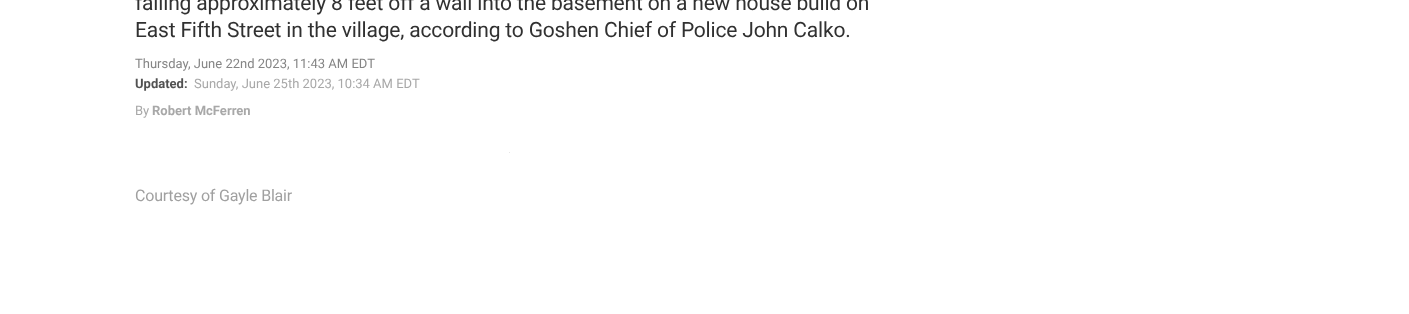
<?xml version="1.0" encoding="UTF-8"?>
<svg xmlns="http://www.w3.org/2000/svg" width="1409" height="314">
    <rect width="100%" height="100%" fill="#FFFFFF"/>
    <text font-family="Roboto" font-size="21" letter-spacing="-0.18" fill="#313131">
        <tspan x="135" y="10">falling approximately 8 feet off a wall into the basement on a new house build on</tspan>
        <tspan x="135" y="37">East Fifth Street in the village, according to Goshen Chief of Police John Calko.</tspan>
    </text>
    <text x="135" y="68" font-family="Roboto" font-size="13" fill="#858585">Thursday, June 22nd 2023, 11:43 AM EDT</text>
    <text x="135" y="88" font-family="Roboto" font-size="13" font-weight="700" fill="#515151">Updated:</text>
    <text x="194" y="88" font-family="Roboto" font-size="13" fill="#A8A8A8">Sunday, June 25th 2023, 10:34 AM EDT</text>
    <text x="135" y="115" font-family="Roboto" font-size="13" fill="#A8A8A8">By</text>
    <text x="152" y="115" font-family="Roboto" font-size="13" font-weight="700" fill="#A8A8A8">Robert McFerren</text>
    <rect x="509" y="152" width="1" height="1" fill="#E6E6E6"/>
    <text x="135" y="201" font-family="Roboto" font-size="16" letter-spacing="-0.2" fill="#A0A0A0">Courtesy of Gayle Blair</text>
</svg>
